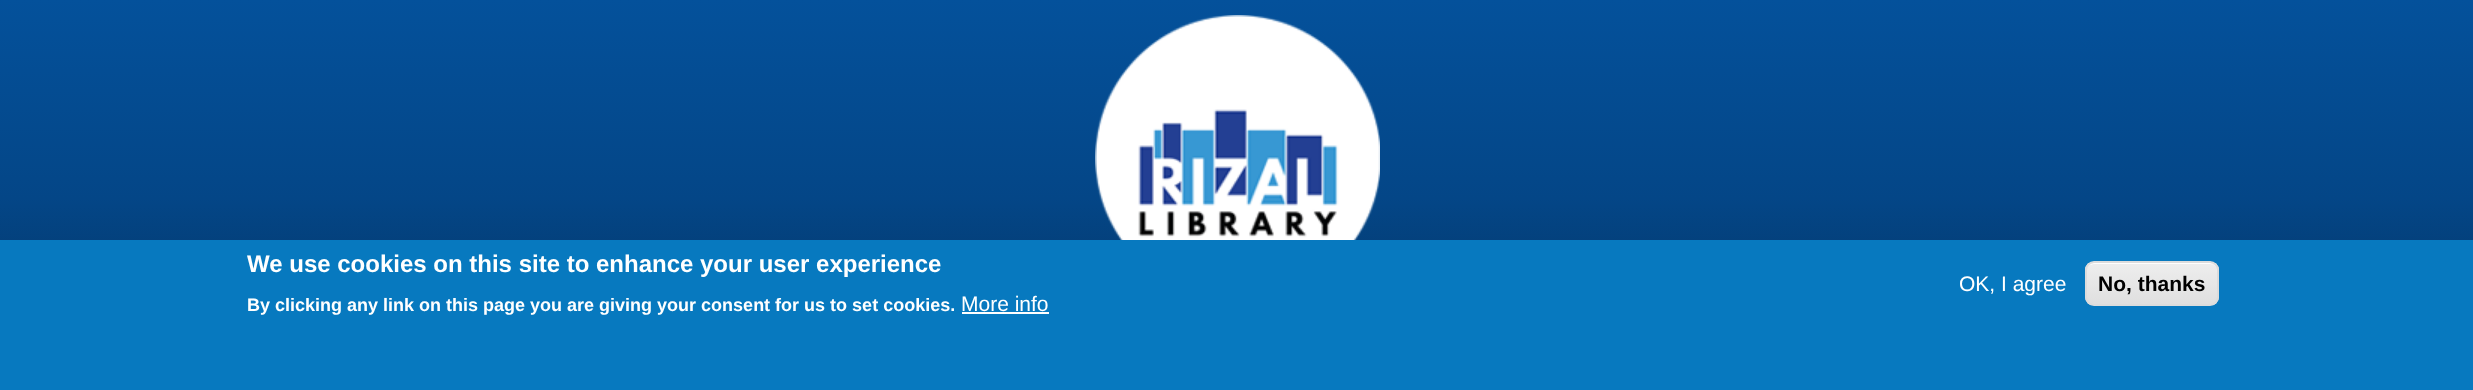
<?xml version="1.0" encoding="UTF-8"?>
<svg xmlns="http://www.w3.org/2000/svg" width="2473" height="390">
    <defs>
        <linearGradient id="g1" gradientUnits="userSpaceOnUse" x1="1237" y1="0" x2="1237" y2="330"><stop offset="0" stop-color="#04519B"/><stop offset="0.6" stop-color="#044687"/><stop offset="1" stop-color="#033769"/></linearGradient>
        <clipPath id="clip1"><rect x="2085" y="261" width="134" height="45" rx="9"/></clipPath>
        <linearGradient id="g2" gradientUnits="userSpaceOnUse" x1="2152" y1="263" x2="2152" y2="305"><stop offset="0.05" stop-color="#EDEDED"/><stop offset="1" stop-color="#DFDFDF"/></linearGradient>
    </defs>
    <rect width="100%" height="100%" fill="#FFFFFF"/>
    <rect x="0" y="0" width="2473" height="240" fill="url(#g1)"/>
    <image x="1095" y="15" width="285" height="225" href="img_01.png"/>
    <rect x="0" y="240" width="2473" height="150" fill="#0779BF"/>
    <text x="247" y="272" font-family="Liberation Sans" font-size="24" font-weight="700" fill="#FFFFFF">We use cookies on this site to enhance your user experience</text>
    <text x="247" y="311" font-family="Liberation Sans" font-size="18" font-weight="700" fill="#FFFFFF">By clicking any link on this page you are giving your consent for us to set cookies.</text>
    <text x="961" y="311" font-family="Liberation Sans" font-size="21" fill="#FFFFFF">More info</text>
    <rect x="962" y="312" width="87" height="2" fill="#FFFFFF"/>
    <text x="1959" y="291" font-family="Liberation Sans" font-size="21" fill="#FFFFFF">OK, I agree</text>
    <g clip-path="url(#clip1)">
        <rect x="2085" y="263" width="134" height="42" fill="url(#g2)"/>
    </g>
    <path d="M 2094 264 H 2210 C 2214 264 2217 267 2217 272 V 271 C 2217 267 2213 263 2209 263 H 2095 C 2093 263 2090 264 2089 266 C 2090 265 2092 264 2094 264 Z" fill="#FFFFFF"/>
    <rect x="2086" y="262" width="132" height="43" rx="8" fill="none" stroke="#DCDCDC" stroke-width="2"/>
    <text x="2098" y="291" font-family="Liberation Sans" font-size="21" font-weight="700" fill="#000000">No, thanks</text>
</svg>
